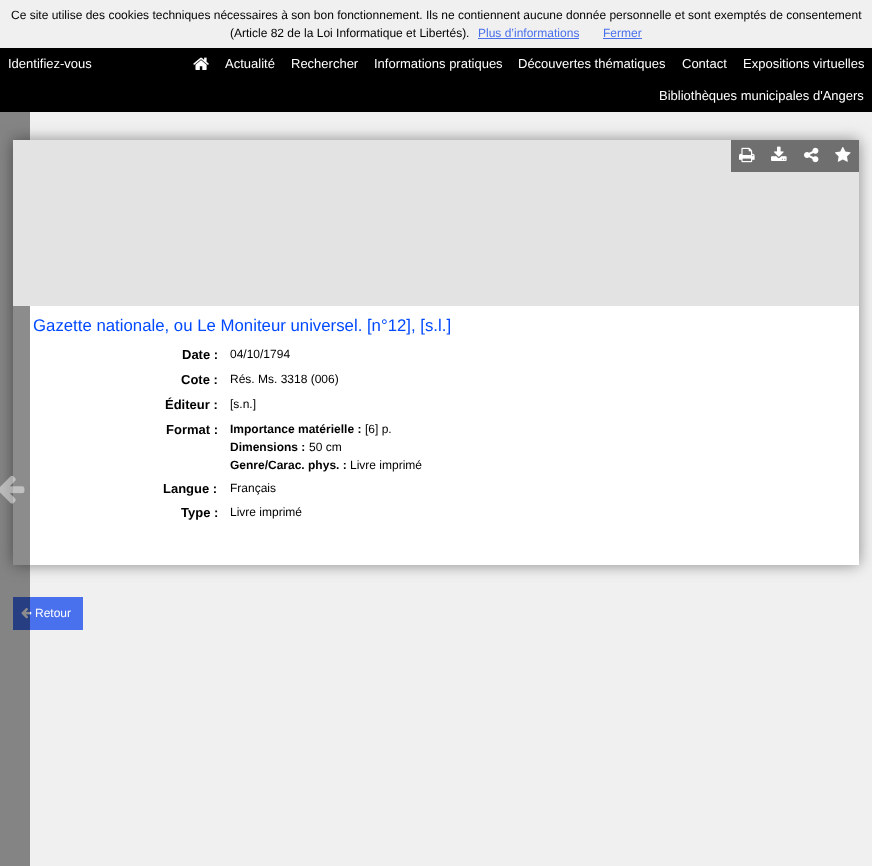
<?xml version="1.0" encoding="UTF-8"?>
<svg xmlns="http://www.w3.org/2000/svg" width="872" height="866">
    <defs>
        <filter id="blur1" x="-50%" y="-200%" width="200%" height="500%"><feGaussianBlur stdDeviation="7.5"/></filter>
    </defs>
    <rect width="100%" height="100%" fill="#F0F0F0"/>
    <text x="11" y="19" font-family="Liberation Sans" font-size="12" fill="#000000">Ce site utilise des cookies techniques nécessaires à son bon fonctionnement. Ils ne contiennent aucune donnée personnelle et sont exemptés de consentement</text>
    <text x="230" y="37" font-family="Liberation Sans" font-size="12" fill="#000000">(Article 82 de la Loi Informatique et Libertés).</text>
    <text x="478" y="37" font-family="Liberation Sans" font-size="12" fill="#4970EC">Plus d’informations</text>
    <rect x="478" y="38" width="101" height="1" fill="#4970EC"/>
    <text x="603" y="37" font-family="Liberation Sans" font-size="12" fill="#4970EC">Fermer</text>
    <rect x="603" y="38" width="39" height="1" fill="#4970EC"/>
    <rect x="0" y="48" width="872" height="64" fill="#000000"/>
    <text x="8" y="68" font-family="Liberation Sans" font-size="13" fill="#FFFFFF">Identifiez-vous</text>
    <image x="193" y="57" width="16" height="13" href="img_01.png"/>
    <text x="225" y="68" font-family="Liberation Sans" font-size="13" fill="#FFFFFF">Actualité</text>
    <text x="291" y="68" font-family="Liberation Sans" font-size="13" fill="#FFFFFF">Rechercher</text>
    <text x="374" y="68" font-family="Liberation Sans" font-size="13" fill="#FFFFFF">Informations pratiques</text>
    <text x="518" y="68" font-family="Liberation Sans" font-size="13" fill="#FFFFFF">Découvertes thématiques</text>
    <text x="682" y="68" font-family="Liberation Sans" font-size="13" fill="#FFFFFF">Contact</text>
    <text x="743" y="68" font-family="Liberation Sans" font-size="13" fill="#FFFFFF">Expositions virtuelles</text>
    <text x="659" y="100" font-family="Liberation Sans" font-size="13" fill="#FFFFFF">Bibliothèques municipales d'Angers</text>
    <rect x="13" y="140" width="846" height="425" fill="#888888" filter="url(#blur1)"/>
    <rect x="13" y="306" width="846" height="259" fill="#FFFFFF"/>
    <rect x="13" y="597" width="70" height="33" fill="#4A71ED"/>
    <image x="21" y="608" width="11" height="11" href="img_07.png"/>
    <rect x="0" y="112" width="30" height="754" fill="#000000" fill-opacity="0.45"/>
    <image x="0" y="475" width="25" height="29" href="img_02.png"/>
    <rect x="13" y="140" width="846" height="166" fill="#E3E3E3"/>
    <rect x="731" y="140" width="64" height="32" fill="#6F6F6F"/>
    <image x="739" y="147" width="16" height="16" href="img_03.png"/>
    <rect x="795" y="140" width="64" height="32" fill="#6F6F6F"/>
    <image x="835" y="147" width="16" height="15" href="img_04.png"/>
    <image x="771" y="146" width="16" height="15" href="img_05.png"/>
    <image x="804" y="147" width="15" height="16" href="img_06.png"/>
    <text x="33" y="331" font-family="Liberation Sans" font-size="16.8" fill="#0049FF">Gazette nationale, ou Le Moniteur universel. [n°12], [s.l.]</text>
    <text x="182" y="359" font-family="Liberation Sans" font-size="13" font-weight="700" fill="#000000">Date :</text>
    <text x="230" y="358" font-family="Liberation Sans" font-size="12" fill="#000000">04/10/1794</text>
    <text x="181" y="384" font-family="Liberation Sans" font-size="13" font-weight="700" fill="#000000">Cote :</text>
    <text x="230" y="383" font-family="Liberation Sans" font-size="12" fill="#000000">Rés. Ms. 3318 (006)</text>
    <text x="165" y="409" font-family="Liberation Sans" font-size="13" font-weight="700" fill="#000000">Éditeur :</text>
    <text x="230" y="408" font-family="Liberation Sans" font-size="12" fill="#000000">[s.n.]</text>
    <text x="166" y="434" font-family="Liberation Sans" font-size="13" font-weight="700" fill="#000000">Format :</text>
    <text x="230" y="433" font-family="Liberation Sans" font-size="12" font-weight="700" fill="#000000">Importance matérielle :</text>
    <text x="365" y="433" font-family="Liberation Sans" font-size="12" fill="#000000">[6] p.</text>
    <text x="230" y="451" font-family="Liberation Sans" font-size="12" font-weight="700" fill="#000000">Dimensions :</text>
    <text x="309" y="451" font-family="Liberation Sans" font-size="12" fill="#000000">50 cm</text>
    <text x="230" y="469" font-family="Liberation Sans" font-size="12" font-weight="700" fill="#000000">Genre/Carac. phys. :</text>
    <text x="350" y="469" font-family="Liberation Sans" font-size="12" fill="#000000">Livre imprimé</text>
    <text x="163" y="493" font-family="Liberation Sans" font-size="13" font-weight="700" fill="#000000">Langue :</text>
    <text x="230" y="492" font-family="Liberation Sans" font-size="12" fill="#000000">Français</text>
    <text x="181" y="517" font-family="Liberation Sans" font-size="13" font-weight="700" fill="#000000">Type :</text>
    <text x="230" y="516" font-family="Liberation Sans" font-size="12" fill="#000000">Livre imprimé</text>
    <text x="35" y="617" font-family="Liberation Sans" font-size="12" fill="#FFFFFF">Retour</text>
</svg>
